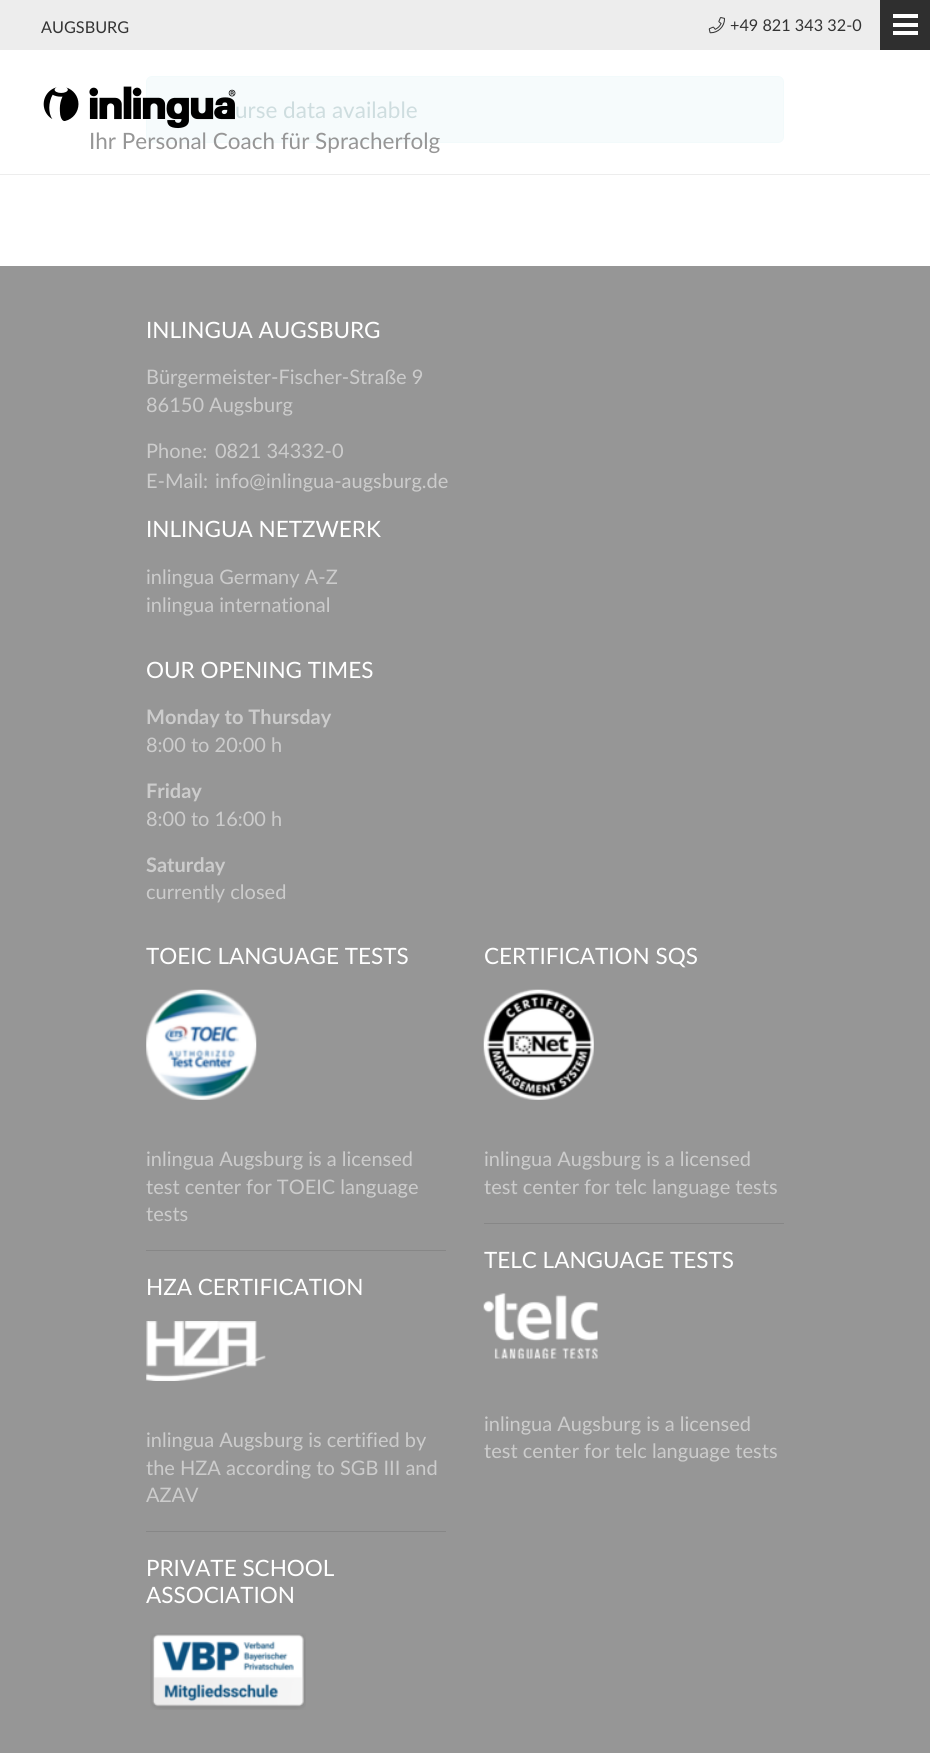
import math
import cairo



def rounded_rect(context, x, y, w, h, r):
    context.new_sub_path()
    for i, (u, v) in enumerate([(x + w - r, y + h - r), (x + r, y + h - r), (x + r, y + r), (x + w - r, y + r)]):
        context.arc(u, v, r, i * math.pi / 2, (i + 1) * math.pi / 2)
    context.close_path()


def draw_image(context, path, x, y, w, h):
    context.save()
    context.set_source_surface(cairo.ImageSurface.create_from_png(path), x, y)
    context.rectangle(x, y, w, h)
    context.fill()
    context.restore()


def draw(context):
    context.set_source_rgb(1, 1, 1)
    context.paint()
    context.set_source_rgb(237 / 255, 237 / 255, 237 / 255)
    context.rectangle(0, 0, 880, 50)
    context.fill()
    draw_image(context, "images/1.png", 708, 17, 17, 17)
    context.set_source_rgb(47 / 255, 47 / 255, 47 / 255)
    context.rectangle(880, 0, 50, 50)
    context.fill()
    context.set_source_rgb(1, 1, 1)
    context.rectangle(893, 23, 25, 4)
    context.fill()
    context.rectangle(893, 14, 25, 4)
    context.fill()
    context.rectangle(893, 31, 25, 4)
    context.fill()
    context.set_source_rgb(237 / 255, 237 / 255, 237 / 255)
    context.rectangle(0, 174, 930, 1)
    context.fill()
    context.set_source_rgb(246 / 255, 251 / 255, 252 / 255)
    rounded_rect(context, 146.5, 76.5, 637, 66, 5.5)
    context.fill_preserve()
    context.set_source_rgb(242 / 255, 250 / 255, 251 / 255)
    context.set_line_width(1)
    context.stroke()
    draw_image(context, "images/2.png", 43, 86, 193, 43)
    context.set_source_rgb(150 / 255, 150 / 255, 150 / 255)
    context.rectangle(0, 266, 930, 1487)
    context.fill()
    draw_image(context, "images/3.png", 146, 989, 111, 111)
    context.set_source_rgb(135 / 255, 135 / 255, 135 / 255)
    context.rectangle(146, 1250, 300, 1)
    context.fill()
    draw_image(context, "images/4.png", 146, 1321, 120, 60)
    context.rectangle(146, 1531, 300, 1)
    context.fill()
    draw_image(context, "images/5.png", 150, 1633, 156, 77)
    draw_image(context, "images/6.png", 483, 989, 111, 111)
    context.rectangle(484, 1223, 300, 1)
    context.fill()
    draw_image(context, "images/7.png", 483, 1293, 115, 66)
    context.select_font_face("Lato")
    context.set_font_size(16.25)
    context.set_source_rgb(51 / 255, 51 / 255, 51 / 255)
    context.move_to(41, 33)
    context.show_text("AUGSBURG")
    context.move_to(730, 31)
    context.show_text("+49 821 343 32-0")
    context.set_font_size(22.5)
    context.set_source_rgb(150 / 255, 150 / 255, 150 / 255)
    context.move_to(89, 149)
    context.show_text("Ihr Personal Coach für Spracherfolg")
    context.set_source_rgb(206 / 255, 221 / 255, 223 / 255)
    context.move_to(235, 118)
    context.show_text("urse data available")
    context.set_source_rgb(1, 1, 1)
    context.move_to(146, 338)
    context.show_text("INLINGUA AUGSBURG")
    context.set_font_size(20)
    context.set_source_rgb(204 / 255, 204 / 255, 204 / 255)
    context.move_to(146, 384)
    context.show_text("Bürgermeister-Fischer-Straße 9")
    context.move_to(146, 412)
    context.show_text("86150 Augsburg")
    context.move_to(146, 458)
    context.show_text("Phone:")
    context.move_to(215, 458)
    context.show_text("0821 34332-0")
    context.move_to(146, 488)
    context.show_text("E-Mail:")
    context.move_to(215, 488)
    context.show_text("info@inlingua-augsburg.de")
    context.set_font_size(22.5)
    context.set_source_rgb(1, 1, 1)
    context.move_to(146, 537)
    context.show_text("INLINGUA NETZWERK")
    context.set_font_size(20)
    context.set_source_rgb(204 / 255, 204 / 255, 204 / 255)
    context.move_to(146, 584)
    context.show_text("inlingua Germany A-Z")
    context.move_to(146, 612)
    context.show_text("inlingua international")
    context.set_font_size(22.5)
    context.set_source_rgb(1, 1, 1)
    context.move_to(146, 678)
    context.show_text("OUR OPENING TIMES")
    context.select_font_face("Lato", cairo.FontSlant.NORMAL, cairo.FontWeight.BOLD)
    context.set_font_size(20)
    context.set_source_rgb(204 / 255, 204 / 255, 204 / 255)
    context.move_to(146, 724)
    context.show_text("Monday to Thursday")
    context.select_font_face("Lato")
    context.move_to(146, 752)
    context.show_text("8:00 to 20:00 h")
    context.select_font_face("Lato", cairo.FontSlant.NORMAL, cairo.FontWeight.BOLD)
    context.move_to(146, 798)
    context.show_text("Friday")
    context.select_font_face("Lato")
    context.move_to(146, 826)
    context.show_text("8:00 to 16:00 h")
    context.select_font_face("Lato", cairo.FontSlant.NORMAL, cairo.FontWeight.BOLD)
    context.move_to(146, 872)
    context.show_text("Saturday")
    context.select_font_face("Lato")
    context.move_to(146, 899)
    context.show_text("currently closed")
    context.set_font_size(22.5)
    context.set_source_rgb(1, 1, 1)
    context.move_to(146, 964)
    context.show_text("TOEIC LANGUAGE TESTS")
    context.set_font_size(20)
    context.set_source_rgb(204 / 255, 204 / 255, 204 / 255)
    context.move_to(146, 1166)
    context.show_text("inlingua Augsburg is a licensed")
    context.move_to(146, 1194)
    context.show_text("test center for TOEIC language")
    context.move_to(146, 1221)
    context.show_text("tests")
    context.set_font_size(22.5)
    context.set_source_rgb(1, 1, 1)
    context.move_to(146, 1295)
    context.show_text("HZA CERTIFICATION")
    context.set_font_size(20)
    context.set_source_rgb(204 / 255, 204 / 255, 204 / 255)
    context.move_to(146, 1447)
    context.show_text("inlingua Augsburg is certified by")
    context.move_to(146, 1475)
    context.show_text("the HZA according to SGB III and")
    context.move_to(146, 1502)
    context.show_text("AZAV")
    context.set_font_size(22.5)
    context.set_source_rgb(1, 1, 1)
    context.move_to(146, 1576)
    context.show_text("PRIVATE SCHOOL")
    context.move_to(146, 1603)
    context.show_text("ASSOCIATION")
    context.move_to(484, 964)
    context.show_text("CERTIFICATION SQS")
    context.set_font_size(20)
    context.set_source_rgb(204 / 255, 204 / 255, 204 / 255)
    context.move_to(484, 1166)
    context.show_text("inlingua Augsburg is a licensed")
    context.move_to(484, 1194)
    context.show_text("test center for telc language tests")
    context.set_font_size(22.5)
    context.set_source_rgb(1, 1, 1)
    context.move_to(484, 1268)
    context.show_text("TELC LANGUAGE TESTS")
    context.set_font_size(20)
    context.set_source_rgb(204 / 255, 204 / 255, 204 / 255)
    context.move_to(484, 1431)
    context.show_text("inlingua Augsburg is a licensed")
    context.move_to(484, 1458)
    context.show_text("test center for telc language tests")


surface = cairo.ImageSurface(cairo.Format.RGB24, 930, 1753)
context = cairo.Context(surface)
options = cairo.FontOptions()
options.set_hint_metrics(cairo.HintMetrics.OFF)
options.set_hint_style(cairo.HintStyle.NONE)
context.set_font_options(options)
context.set_miter_limit(4)
draw(context)
surface.write_to_png("out.png")
